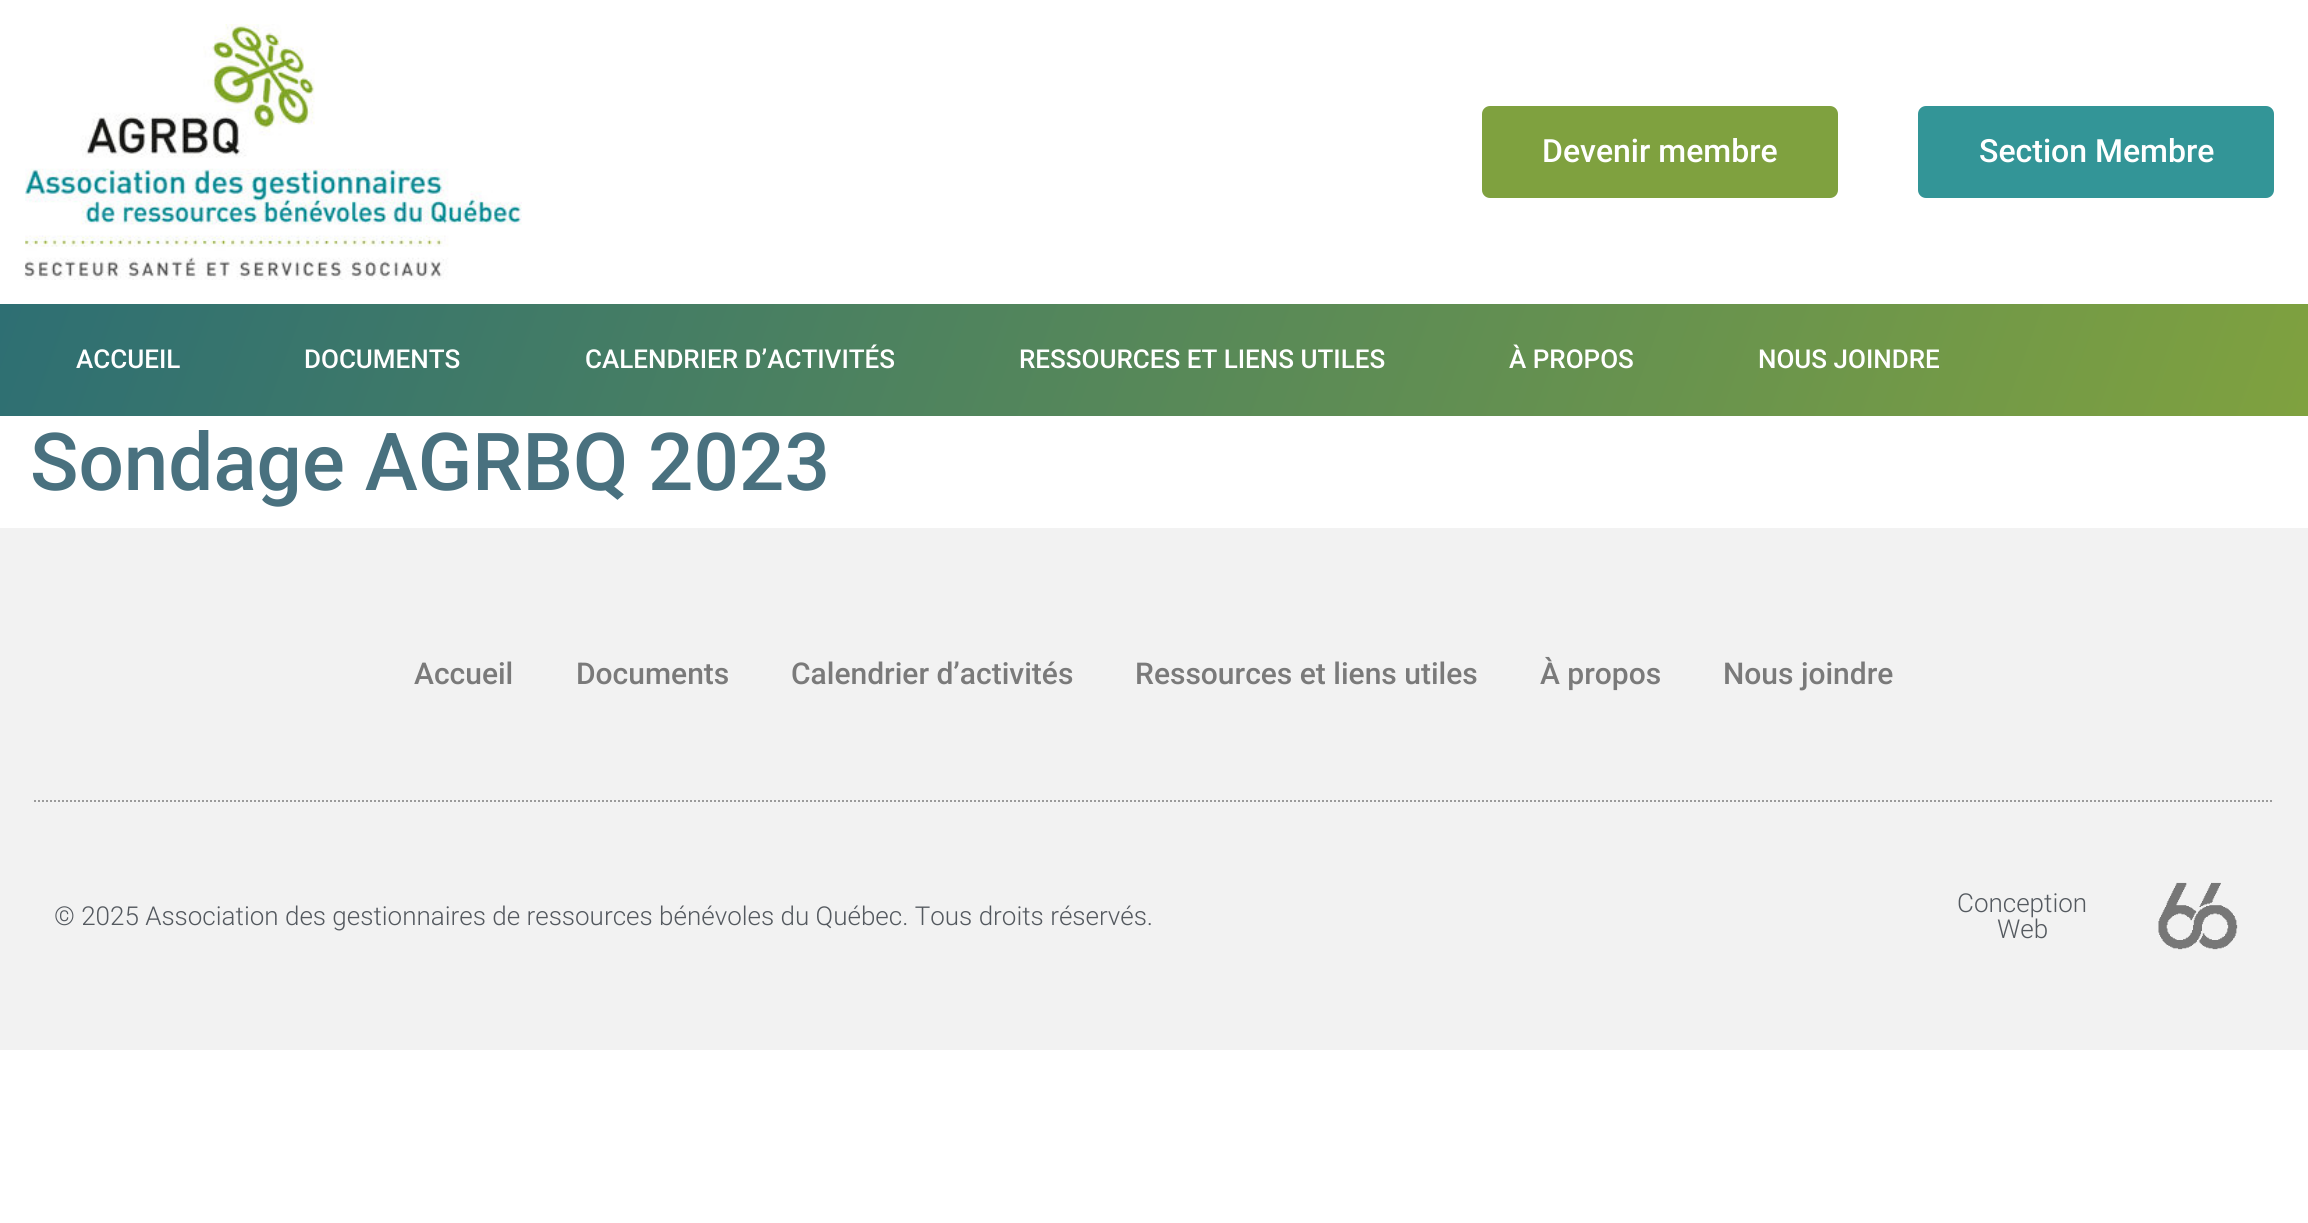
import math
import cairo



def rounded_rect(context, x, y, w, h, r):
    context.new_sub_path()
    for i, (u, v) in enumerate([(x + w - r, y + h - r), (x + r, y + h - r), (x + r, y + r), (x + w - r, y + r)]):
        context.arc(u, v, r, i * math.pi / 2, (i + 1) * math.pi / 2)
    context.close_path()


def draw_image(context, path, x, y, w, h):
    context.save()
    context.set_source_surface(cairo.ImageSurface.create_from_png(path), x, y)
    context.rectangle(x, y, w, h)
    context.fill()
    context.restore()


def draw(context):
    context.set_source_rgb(1, 1, 1)
    context.paint()
    draw_image(context, "images/1.png", 24, 24, 498, 256)
    context.set_source_rgb(127 / 255, 161 / 255, 63 / 255)
    rounded_rect(context, 1482, 106, 356, 92, 8)
    context.fill()
    context.set_source_rgb(51 / 255, 149 / 255, 151 / 255)
    rounded_rect(context, 1918, 106, 356, 92, 8)
    context.fill()
    gradient = cairo.LinearGradient(2191, 737, 117, -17)
    gradient.add_color_stop_rgba(0, 127 / 255, 161 / 255, 63 / 255, 1)
    gradient.add_color_stop_rgba(1, 46 / 255, 111 / 255, 115 / 255, 1)
    context.set_source(gradient)
    context.rectangle(0, 304, 2308, 112)
    context.fill()
    context.set_source_rgb(242 / 255, 242 / 255, 242 / 255)
    context.rectangle(0, 528, 2308, 522)
    context.fill()
    context.new_path()
    context.move_to(34, 801)
    context.line_to(2274, 801)
    context.set_source_rgb(155 / 255, 155 / 255, 155 / 255)
    context.set_dash([2, 2])
    context.stroke()
    draw_image(context, "images/2.png", 2158, 882, 80, 68)
    context.select_font_face("Roboto Medium")
    context.set_font_size(32)
    context.set_source_rgb(1, 1, 1)
    context.move_to(1542, 162)
    context.show_text("Devenir membre")
    context.move_to(1979, 162)
    context.show_text("Section Membre")
    context.set_font_size(26)
    context.move_to(76, 368)
    context.show_text("ACCUEIL")
    context.move_to(304, 368)
    context.show_text("DOCUMENTS")
    context.move_to(585, 368)
    context.show_text("CALENDRIER D’ACTIVITÉS")
    context.move_to(1019, 368)
    context.show_text("RESSOURCES ET LIENS UTILES")
    context.move_to(1509, 368)
    context.show_text("À PROPOS")
    context.move_to(1758, 368)
    context.show_text("NOUS JOINDRE")
    context.set_font_size(80)
    context.set_source_rgb(73 / 255, 113 / 255, 127 / 255)
    context.move_to(30, 490)
    context.show_text("Sondage AGRBQ 2023")
    context.set_font_size(30)
    context.set_source_rgb(122 / 255, 122 / 255, 122 / 255)
    context.move_to(414, 684)
    context.show_text("Accueil")
    context.move_to(576, 684)
    context.show_text("Documents")
    context.move_to(791, 684)
    context.show_text("Calendrier d’activités")
    context.move_to(1135, 684)
    context.show_text("Ressources et liens utiles")
    context.move_to(1540, 684)
    context.show_text("À propos")
    context.move_to(1723, 684)
    context.show_text("Nous joindre")
    context.select_font_face("Roboto Light")
    context.set_font_size(26)
    context.set_source_rgb(84 / 255, 89 / 255, 95 / 255)
    context.move_to(54, 925)
    context.show_text("© 2025 Association des gestionnaires de ressources bénévoles du Québec. Tous droits réservés.")
    context.move_to(1957, 912)
    context.show_text("Conception")
    context.move_to(1997, 938)
    context.show_text("Web")


surface = cairo.ImageSurface(cairo.Format.RGB24, 2308, 1223)
context = cairo.Context(surface)
options = cairo.FontOptions()
options.set_hint_metrics(cairo.HintMetrics.OFF)
options.set_hint_style(cairo.HintStyle.NONE)
context.set_font_options(options)
context.set_miter_limit(4)
draw(context)
surface.write_to_png("out.png")
